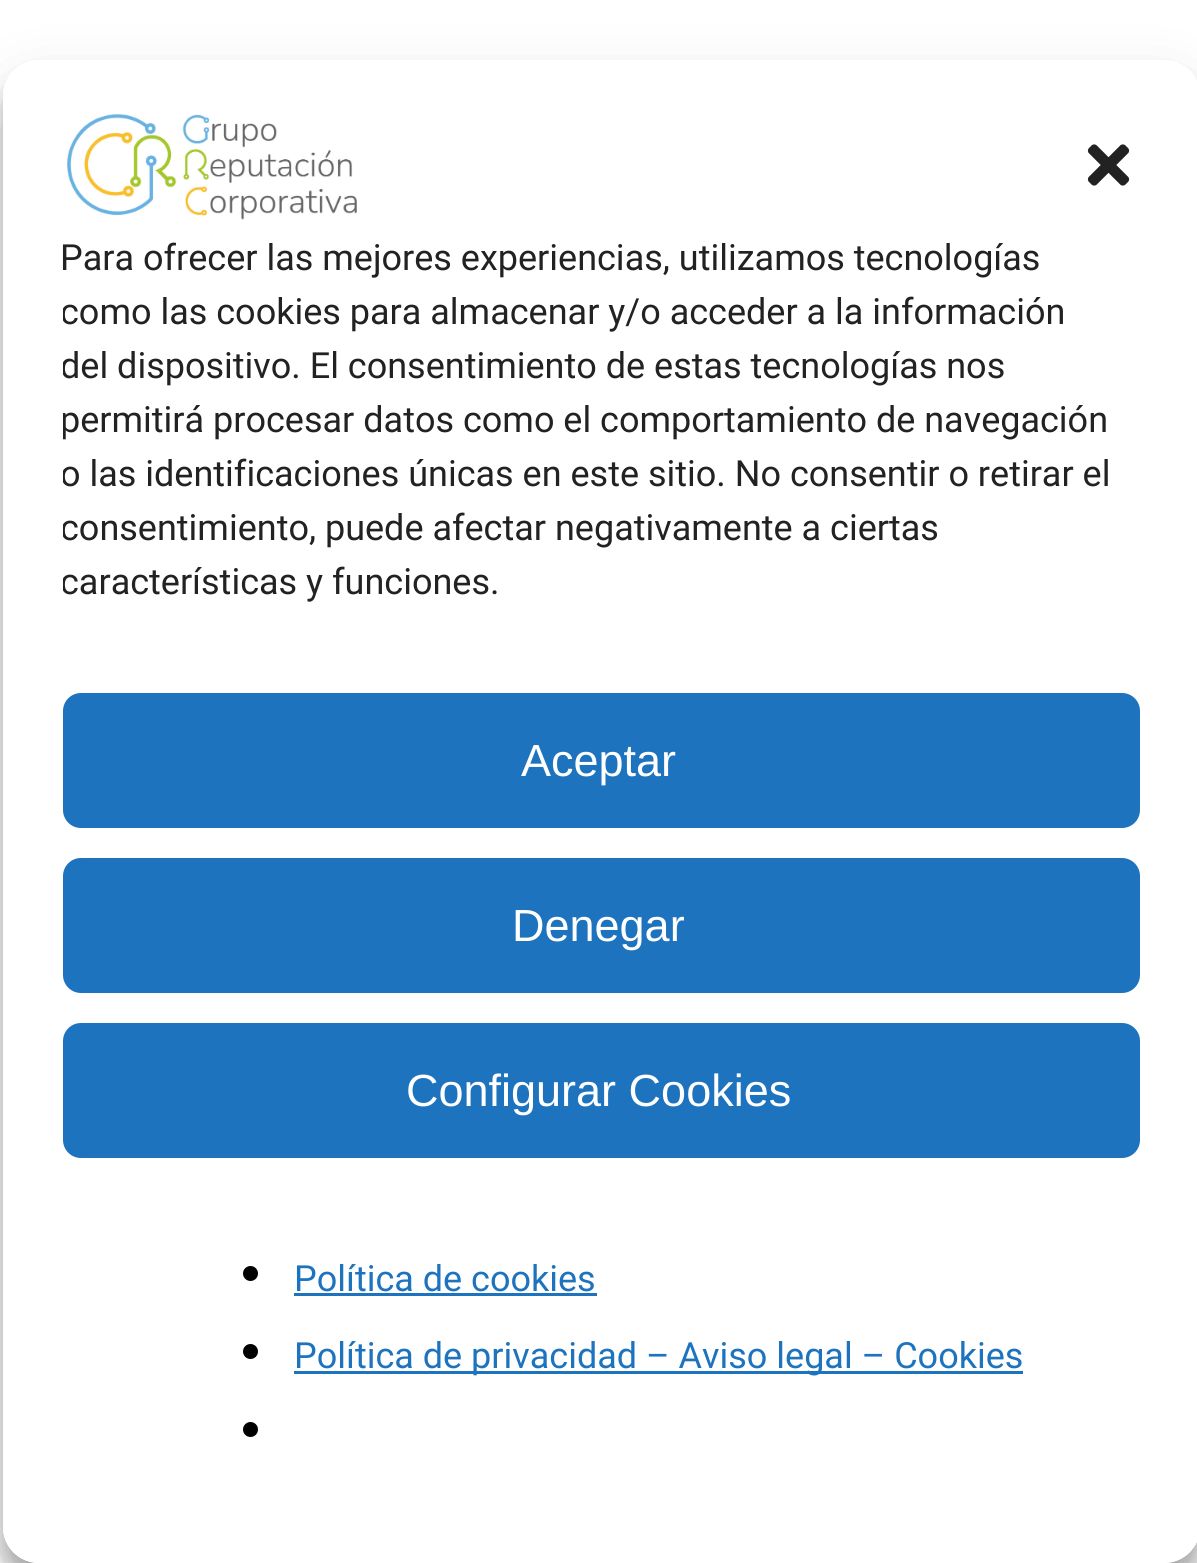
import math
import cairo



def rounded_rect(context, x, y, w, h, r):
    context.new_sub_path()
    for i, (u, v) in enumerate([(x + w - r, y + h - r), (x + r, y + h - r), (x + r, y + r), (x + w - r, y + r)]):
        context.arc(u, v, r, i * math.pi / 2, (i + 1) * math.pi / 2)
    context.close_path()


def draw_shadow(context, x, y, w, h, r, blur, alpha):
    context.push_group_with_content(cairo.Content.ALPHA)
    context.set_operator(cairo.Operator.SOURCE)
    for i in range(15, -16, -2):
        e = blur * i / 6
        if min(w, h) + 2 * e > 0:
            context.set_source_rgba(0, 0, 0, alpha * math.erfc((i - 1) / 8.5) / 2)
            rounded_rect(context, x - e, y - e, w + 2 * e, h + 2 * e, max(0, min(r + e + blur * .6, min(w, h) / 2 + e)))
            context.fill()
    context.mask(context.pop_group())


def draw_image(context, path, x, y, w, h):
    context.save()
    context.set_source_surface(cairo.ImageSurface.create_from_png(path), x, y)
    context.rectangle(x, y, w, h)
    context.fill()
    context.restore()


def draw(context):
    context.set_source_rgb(1, 1, 1)
    context.paint()
    context.save()
    context.set_fill_rule(cairo.FillRule.EVEN_ODD)
    context.new_path()
    context.move_to(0, 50)
    context.line_to(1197, 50)
    context.line_to(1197, 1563)
    context.line_to(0, 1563)
    context.close_path()
    context.move_to(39, 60)
    context.line_to(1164, 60)
    context.curve_to(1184, 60, 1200, 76, 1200, 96)
    context.line_to(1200, 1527)
    context.curve_to(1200, 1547, 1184, 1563, 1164, 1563)
    context.line_to(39, 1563)
    context.curve_to(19, 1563, 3, 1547, 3, 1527)
    context.line_to(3, 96)
    context.curve_to(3, 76, 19, 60, 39, 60)
    context.close_path()
    context.clip()
    context.set_source_rgb(0, 0, 0)
    draw_shadow(context, 3, 78, 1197, 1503, 36, 9, 0.23)
    context.restore()
    context.save()
    context.set_fill_rule(cairo.FillRule.EVEN_ODD)
    context.new_path()
    context.move_to(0, 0)
    context.line_to(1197, 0)
    context.line_to(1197, 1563)
    context.line_to(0, 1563)
    context.close_path()
    context.move_to(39, 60)
    context.line_to(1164, 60)
    context.curve_to(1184, 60, 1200, 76, 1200, 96)
    context.line_to(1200, 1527)
    context.curve_to(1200, 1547, 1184, 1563, 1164, 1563)
    context.line_to(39, 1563)
    context.curve_to(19, 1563, 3, 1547, 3, 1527)
    context.line_to(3, 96)
    context.curve_to(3, 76, 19, 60, 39, 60)
    context.close_path()
    context.clip()
    context.set_source_rgb(0, 0, 0)
    draw_shadow(context, 3, 90, 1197, 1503, 36, 30, 0.19)
    context.restore()
    context.set_source_rgb(1, 1, 1)
    rounded_rect(context, 3, 60, 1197, 1503, 36)
    context.fill()
    draw_image(context, "images/1.png", 66, 113, 291, 107)
    draw_image(context, "images/2.png", 1087, 144, 43, 42)
    context.set_source_rgb(30 / 255, 115 / 255, 190 / 255)
    rounded_rect(context, 64.5, 694.5, 1074, 132, 16.5)
    context.fill_preserve()
    context.set_line_width(3)
    context.stroke()
    rounded_rect(context, 64.5, 859.5, 1074, 132, 16.5)
    context.fill_preserve()
    context.stroke()
    rounded_rect(context, 64.5, 1024.5, 1074, 132, 16.5)
    context.fill_preserve()
    context.stroke()
    context.set_source_rgb(0, 0, 0)
    context.arc(250.5, 1273.5, 7.5, 0, 2 * math.pi)
    context.fill()
    context.set_source_rgb(30 / 255, 115 / 255, 190 / 255)
    context.rectangle(294, 1293, 303, 3)
    context.fill()
    context.set_source_rgb(0, 0, 0)
    context.arc(250.5, 1351.5, 7.5, 0, 2 * math.pi)
    context.fill()
    context.set_source_rgb(30 / 255, 115 / 255, 190 / 255)
    context.rectangle(294, 1371, 729, 3)
    context.fill()
    context.set_source_rgb(0, 0, 0)
    context.arc(250.5, 1429.5, 7.5, 0, 2 * math.pi)
    context.fill()
    context.select_font_face("Roboto")
    context.set_font_size(36)
    context.set_source_rgb(34 / 255, 34 / 255, 34 / 255)
    context.move_to(60, 270)
    context.show_text("Para ofrecer las mejores experiencias, utilizamos tecnologías")
    context.save()
    context.rectangle(63, 231, 1077, 393)
    context.clip()
    context.move_to(60, 324)
    context.show_text("como las cookies para almacenar y/o acceder a la información")
    context.move_to(60, 378)
    context.show_text("del dispositivo. El consentimiento de estas tecnologías nos")
    context.move_to(60, 432)
    context.show_text("permitirá procesar datos como el comportamiento de navegación")
    context.move_to(60, 486)
    context.show_text("o las identificaciones únicas en este sitio. No consentir o retirar el")
    context.move_to(60, 540)
    context.show_text("consentimiento, puede afectar negativamente a ciertas")
    context.move_to(60, 594)
    context.show_text("características y funciones.")
    context.restore()
    context.select_font_face("Liberation Sans")
    context.set_font_size(45)
    context.set_source_rgb(1, 1, 1)
    context.move_to(521, 776)
    context.show_text("Aceptar")
    context.move_to(512, 941)
    context.show_text("Denegar")
    context.move_to(406, 1106)
    context.show_text("Configurar Cookies")
    context.select_font_face("Roboto")
    context.set_font_size(36)
    context.set_source_rgb(30 / 255, 115 / 255, 190 / 255)
    context.move_to(294, 1291)
    context.show_text("Política de cookies")
    context.move_to(294, 1368)
    context.show_text("Política de privacidad – Aviso legal – Cookies")


surface = cairo.ImageSurface(cairo.Format.RGB24, 1197, 1563)
context = cairo.Context(surface)
options = cairo.FontOptions()
options.set_hint_metrics(cairo.HintMetrics.OFF)
options.set_hint_style(cairo.HintStyle.NONE)
context.set_font_options(options)
context.set_miter_limit(4)
draw(context)
surface.write_to_png("out.png")
